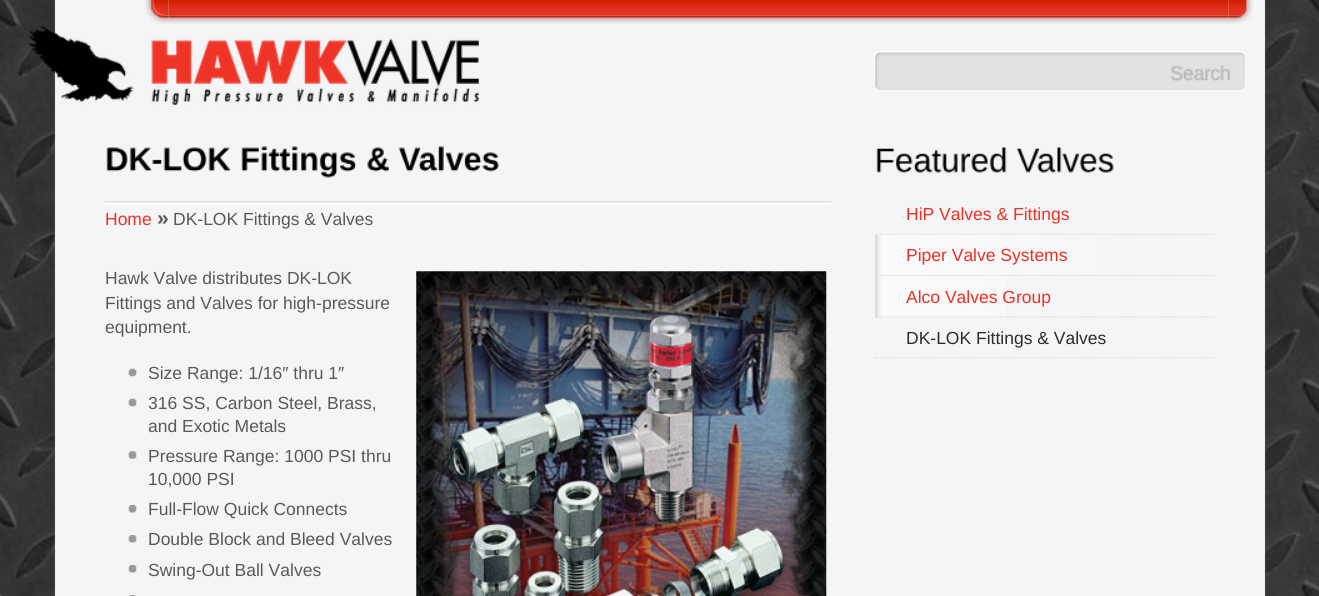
import math
import cairo



def draw_image(context, path, x, y, w, h):
    context.save()
    context.set_source_surface(cairo.ImageSurface.create_from_png(path), x, y)
    context.rectangle(x, y, w, h)
    context.fill()
    context.restore()


def draw(context):
    context.set_source_rgb(1, 1, 1)
    context.paint()
    draw_image(context, "images/1.png", 0, 0, 1319, 596)
    draw_image(context, "images/2.png", 54, 0, 1212, 125)
    draw_image(context, "images/3.png", 145, 0, 24, 24)
    draw_image(context, "images/4.png", 168, 0, 1061, 24)
    draw_image(context, "images/5.png", 1228, 0, 25, 24)
    draw_image(context, "images/6.png", 28, 26, 451, 79)
    draw_image(context, "images/7.png", 874, 51, 372, 40)
    draw_image(context, "images/8.png", 54, 125, 1212, 471)
    draw_image(context, "images/9.png", 106, 147, 125, 25)
    draw_image(context, "images/10.png", 241, 146, 116, 33)
    draw_image(context, "images/11.png", 367, 147, 23, 25)
    draw_image(context, "images/12.png", 398, 146, 102, 26)
    draw_image(context, "images/13.png", 105, 201, 727, 4)
    draw_image(context, "images/14.png", 416, 271, 411, 325)
    draw_image(context, "images/15.png", 128, 368, 9, 9)
    draw_image(context, "images/15.png", 128, 398, 9, 9)
    draw_image(context, "images/16.png", 128, 451, 9, 8)
    draw_image(context, "images/17.png", 128, 505, 9, 8)
    draw_image(context, "images/17.png", 128, 535, 9, 8)
    draw_image(context, "images/17.png", 128, 565, 9, 8)
    draw_image(context, "images/18.png", 129, 595, 7, 1)
    draw_image(context, "images/19.png", 876, 147, 131, 26)
    draw_image(context, "images/20.png", 1016, 147, 98, 26)
    context.new_path()
    context.move_to(875, 234.5)
    context.line_to(1215, 234.5)
    context.set_source_rgb(219 / 255, 219 / 255, 220 / 255)
    context.set_line_width(1.2)
    context.set_dash([1.25, 1.25])
    context.stroke()
    draw_image(context, "images/21.png", 875, 235, 231, 42)
    context.new_path()
    context.move_to(875, 275.5)
    context.line_to(1215, 275.5)
    context.stroke()
    draw_image(context, "images/22.png", 875, 276, 131, 42)
    context.new_path()
    context.move_to(875, 317)
    context.line_to(1215, 317)
    context.stroke()
    context.new_path()
    context.move_to(875, 358)
    context.line_to(1215, 358)
    context.stroke()
    context.select_font_face("Liberation Sans")
    context.set_font_size(17.5)
    context.set_source_rgb(238 / 255, 49 / 255, 36 / 255)
    context.move_to(105, 225)
    context.show_text("Home")
    context.select_font_face("Liberation Sans", cairo.FontSlant.NORMAL, cairo.FontWeight.BOLD)
    context.set_font_size(21)
    context.set_source_rgb(89 / 255, 89 / 255, 89 / 255)
    context.move_to(157, 225)
    context.show_text("»")
    context.select_font_face("Liberation Sans")
    context.set_font_size(17.5)
    context.move_to(173, 225)
    context.show_text("DK-LOK Fittings & Valves")
    context.move_to(105, 284)
    context.show_text("Hawk Valve distributes DK-LOK")
    context.move_to(105, 309)
    context.show_text("Fittings and Valves for high-pressure")
    context.move_to(105, 333)
    context.show_text("equipment.")
    context.move_to(148, 379)
    context.show_text("Size Range: 1/16″ thru 1″")
    context.move_to(148, 409)
    context.show_text("316 SS, Carbon Steel, Brass,")
    context.move_to(148, 432)
    context.show_text("and Exotic Metals")
    context.move_to(148, 462)
    context.show_text("Pressure Range: 1000 PSI thru")
    context.move_to(148, 485)
    context.show_text("10,000 PSI")
    context.move_to(148, 515)
    context.show_text("Full-Flow Quick Connects")
    context.move_to(148, 545)
    context.show_text("Double Block and Bleed Valves")
    context.move_to(148, 576)
    context.show_text("Swing-Out Ball Valves")
    context.set_source_rgb(238 / 255, 49 / 255, 36 / 255)
    context.move_to(906, 220)
    context.show_text("HiP Valves & Fittings")
    context.move_to(906, 261)
    context.show_text("Piper Valve Systems")
    context.move_to(906, 303)
    context.show_text("Alco Valves Group")
    context.set_source_rgb(44 / 255, 44 / 255, 44 / 255)
    context.move_to(906, 344)
    context.show_text("DK-LOK Fittings & Valves")


surface = cairo.ImageSurface(cairo.Format.RGB24, 1319, 596)
context = cairo.Context(surface)
options = cairo.FontOptions()
options.set_hint_metrics(cairo.HintMetrics.OFF)
options.set_hint_style(cairo.HintStyle.NONE)
context.set_font_options(options)
context.set_miter_limit(4)
draw(context)
surface.write_to_png("out.png")
